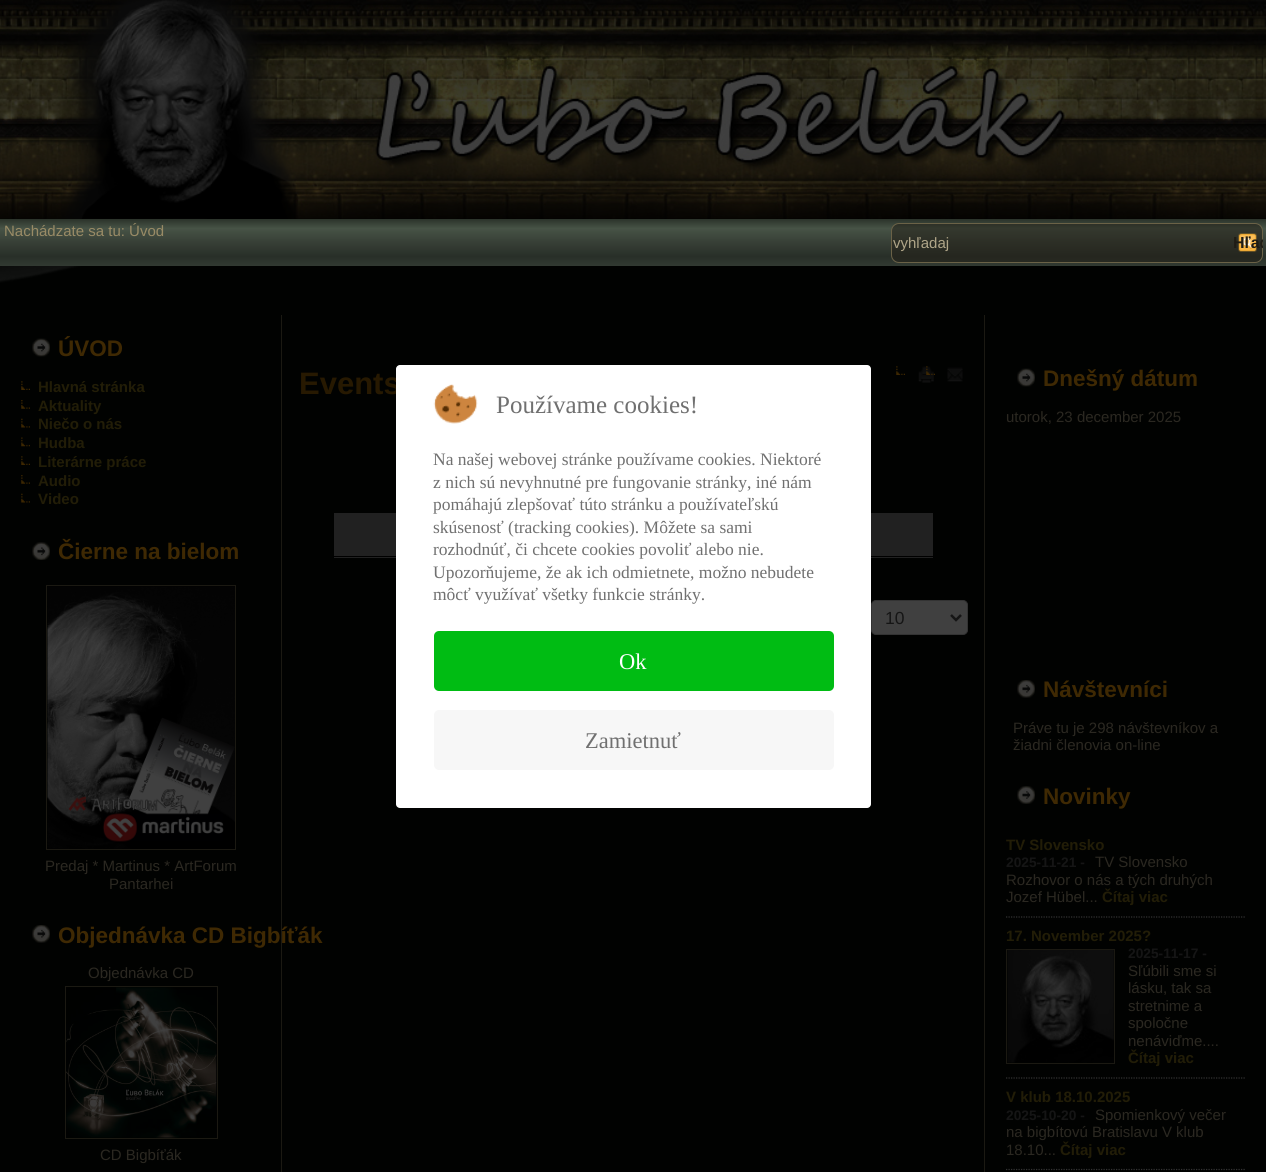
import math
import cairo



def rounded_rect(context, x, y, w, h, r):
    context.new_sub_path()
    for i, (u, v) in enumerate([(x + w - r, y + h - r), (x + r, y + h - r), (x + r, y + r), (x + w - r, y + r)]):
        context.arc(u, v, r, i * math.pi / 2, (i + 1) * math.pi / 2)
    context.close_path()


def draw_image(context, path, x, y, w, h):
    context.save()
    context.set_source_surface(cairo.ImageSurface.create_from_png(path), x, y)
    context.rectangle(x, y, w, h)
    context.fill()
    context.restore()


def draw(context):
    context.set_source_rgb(1 / 255, 2 / 255, 1 / 255)
    context.paint()
    draw_image(context, "images/1.png", 0, 218, 207, 65)
    draw_image(context, "images/2.png", 0, 0, 1266, 219)
    gradient = cairo.LinearGradient(633, 219, 633, 266)
    gradient.add_color_stop_rgba(0, 43 / 255, 50 / 255, 42 / 255, 1)
    gradient.add_color_stop_rgba(0.2, 71 / 255, 83 / 255, 70 / 255, 1)
    gradient.add_color_stop_rgba(0.5, 55 / 255, 63 / 255, 54 / 255, 1)
    gradient.add_color_stop_rgba(0.8, 40 / 255, 47 / 255, 40 / 255, 1)
    gradient.add_color_stop_rgba(1, 50 / 255, 58 / 255, 49 / 255, 1)
    context.set_source(gradient)
    context.rectangle(0, 219, 1266, 47)
    context.fill()
    context.set_source_rgba(34 / 255, 31 / 255, 22 / 255, 0.5)
    rounded_rect(context, 891.5, 223.5, 371, 39, 7.5)
    context.fill_preserve()
    context.set_source_rgb(107 / 255, 98 / 255, 71 / 255)
    context.set_line_width(1)
    context.stroke()
    draw_image(context, "images/3.png", 1238, 233, 19, 19)
    context.set_source_rgb(27 / 255, 25 / 255, 18 / 255)
    context.rectangle(281, 315, 1, 857)
    context.fill()
    draw_image(context, "images/4.png", 32, 338, 18, 19)
    draw_image(context, "images/5.png", 21, 381, 9, 9)
    draw_image(context, "images/6.png", 21, 400, 9, 9)
    draw_image(context, "images/7.png", 21, 418, 9, 10)
    draw_image(context, "images/8.png", 21, 437, 9, 10)
    draw_image(context, "images/5.png", 21, 456, 9, 9)
    draw_image(context, "images/6.png", 21, 475, 9, 9)
    draw_image(context, "images/7.png", 21, 493, 9, 10)
    draw_image(context, "images/9.png", 32, 542, 18, 18)
    context.rectangle(46.5, 585.5, 189, 264)
    context.stroke()
    draw_image(context, "images/10.png", 47, 586, 188, 263)
    draw_image(context, "images/11.png", 32, 925, 18, 18)
    context.rectangle(65.5, 986.5, 152, 152)
    context.stroke()
    draw_image(context, "images/12.png", 66, 987, 151, 151)
    draw_image(context, "images/13.png", 896, 366, 9, 9)
    draw_image(context, "images/14.png", 918, 366, 16, 17)
    draw_image(context, "images/15.png", 926, 366, 9, 9)
    draw_image(context, "images/16.png", 947, 367, 16, 15)
    context.set_source_rgb(33 / 255, 33 / 255, 33 / 255)
    context.rectangle(334, 513, 599, 45)
    context.fill()
    context.set_source_rgb(0, 0, 0)
    context.rectangle(333, 556, 601, 1)
    context.fill()
    context.set_source_rgb(64 / 255, 64 / 255, 64 / 255)
    rounded_rect(context, 871.5, 600.5, 96, 34, 4.5)
    context.fill_preserve()
    context.set_source_rgb(51 / 255, 51 / 255, 51 / 255)
    context.stroke()
    context.new_path()
    context.move_to(951, 615)
    context.line_to(956, 620)
    context.line_to(961, 615)
    context.set_source_rgb(21 / 255, 21 / 255, 21 / 255)
    context.set_line_width(2.5)
    context.stroke()
    context.set_source_rgb(27 / 255, 25 / 255, 18 / 255)
    context.rectangle(984, 315, 1, 857)
    context.fill()
    draw_image(context, "images/4.png", 1017, 368, 18, 19)
    draw_image(context, "images/11.png", 1017, 680, 18, 18)
    draw_image(context, "images/17.png", 1017, 786, 18, 18)
    context.new_path()
    context.move_to(1006, 917)
    context.line_to(1245, 917)
    context.set_source_rgb(51 / 255, 51 / 255, 51 / 255)
    context.set_line_width(1.2)
    context.set_dash([1.25, 1.25])
    context.stroke()
    context.new_path()
    context.move_to(1006, 1078)
    context.line_to(1245, 1078)
    context.stroke()
    context.rectangle(1006.5, 949.5, 108, 114)
    context.set_source_rgb(27 / 255, 25 / 255, 18 / 255)
    context.set_line_width(1)
    context.set_dash([])
    context.stroke()
    draw_image(context, "images/18.png", 1007, 950, 107, 113)
    context.new_path()
    context.move_to(1006, 1169.5)
    context.line_to(1245, 1169.5)
    context.set_source_rgb(51 / 255, 51 / 255, 51 / 255)
    context.set_line_width(1.2)
    context.set_dash([1.25, 1.25])
    context.stroke()
    context.select_font_face("Liberation Sans")
    context.set_font_size(15)
    context.set_source_rgb(153 / 255, 139 / 255, 102 / 255)
    context.move_to(4, 236)
    context.show_text("Nachádzate sa tu: Úvod")
    context.save()
    rounded_rect(context, 893, 224, 368, 37, 6)
    context.clip()
    context.set_source_rgb(175 / 255, 165 / 255, 136 / 255)
    context.move_to(893, 248)
    context.show_text("vyhľadaj")
    context.restore()
    context.save()
    context.rectangle(1233, 223, 30, 40)
    context.clip()
    context.select_font_face("Liberation Sans", cairo.FontSlant.NORMAL, cairo.FontWeight.BOLD)
    context.set_font_size(16)
    context.set_source_rgb(31 / 255, 28 / 255, 20 / 255)
    context.move_to(1233, 248)
    context.show_text("Hľad")
    context.restore()
    context.select_font_face("Liberation Sans", cairo.FontSlant.NORMAL, cairo.FontWeight.BOLD)
    context.set_font_size(22.5)
    context.set_source_rgb(63 / 255, 41 / 255, 3 / 255)
    context.move_to(58, 356)
    context.show_text("ÚVOD")
    context.set_font_size(15)
    context.set_source_rgb(34 / 255, 29 / 255, 7 / 255)
    context.move_to(38, 392)
    context.show_text("Hlavná stránka")
    context.move_to(38, 411)
    context.show_text("Aktuality")
    context.move_to(38, 429)
    context.show_text("Niečo o nás")
    context.move_to(38, 448)
    context.show_text("Hudba")
    context.move_to(38, 467)
    context.show_text("Literárne práce")
    context.move_to(38, 486)
    context.show_text("Audio")
    context.move_to(38, 504)
    context.show_text("Video")
    context.set_font_size(22.5)
    context.set_source_rgb(63 / 255, 41 / 255, 3 / 255)
    context.move_to(58, 559)
    context.show_text("Čierne na bielom")
    context.select_font_face("Liberation Sans")
    context.set_font_size(15)
    context.set_source_rgb(43 / 255, 40 / 255, 33 / 255)
    context.move_to(45, 871)
    context.show_text("Predaj * Martinus * ArtForum")
    context.move_to(109, 889)
    context.show_text("Pantarhei")
    context.select_font_face("Liberation Sans", cairo.FontSlant.NORMAL, cairo.FontWeight.BOLD)
    context.set_font_size(22.5)
    context.set_source_rgb(63 / 255, 41 / 255, 3 / 255)
    context.move_to(58, 943)
    context.show_text("Objednávka CD Bigbíťák")
    context.select_font_face("Liberation Sans")
    context.set_font_size(15)
    context.set_source_rgb(43 / 255, 40 / 255, 33 / 255)
    context.move_to(88, 978)
    context.show_text("Objednávka CD")
    context.move_to(100, 1160)
    context.show_text("CD Bigbíťák")
    context.select_font_face("Liberation Sans", cairo.FontSlant.NORMAL, cairo.FontWeight.BOLD)
    context.set_font_size(31)
    context.set_source_rgb(39 / 255, 25 / 255, 1 / 255)
    context.move_to(299, 394)
    context.show_text("Events")
    context.select_font_face("Liberation Sans")
    context.set_font_size(17.5)
    context.set_source_rgb(21 / 255, 21 / 255, 21 / 255)
    context.move_to(885, 624)
    context.show_text("10")
    context.select_font_face("Liberation Sans", cairo.FontSlant.NORMAL, cairo.FontWeight.BOLD)
    context.set_font_size(22.5)
    context.set_source_rgb(63 / 255, 41 / 255, 3 / 255)
    context.move_to(1043, 386)
    context.show_text("Dnešný dátum")
    context.select_font_face("Liberation Sans")
    context.set_font_size(15)
    context.set_source_rgb(43 / 255, 40 / 255, 33 / 255)
    context.move_to(1006, 422)
    context.show_text("utorok, 23 december 2025")
    context.select_font_face("Liberation Sans", cairo.FontSlant.NORMAL, cairo.FontWeight.BOLD)
    context.set_font_size(22.5)
    context.set_source_rgb(63 / 255, 41 / 255, 3 / 255)
    context.move_to(1043, 697)
    context.show_text("Návštevníci")
    context.select_font_face("Liberation Sans")
    context.set_font_size(15)
    context.set_source_rgb(43 / 255, 40 / 255, 33 / 255)
    context.move_to(1013, 733)
    context.show_text("Práve tu je 298 návštevníkov a")
    context.move_to(1013, 750)
    context.show_text("žiadni členovia on-line")
    context.select_font_face("Liberation Sans", cairo.FontSlant.NORMAL, cairo.FontWeight.BOLD)
    context.set_font_size(22.5)
    context.set_source_rgb(63 / 255, 41 / 255, 3 / 255)
    context.move_to(1043, 804)
    context.show_text("Novinky")
    context.set_font_size(15)
    context.set_source_rgb(34 / 255, 29 / 255, 7 / 255)
    context.move_to(1006, 850)
    context.show_text("TV Slovensko")
    context.set_font_size(13.75)
    context.set_source_rgb(21 / 255, 21 / 255, 21 / 255)
    context.move_to(1006, 867)
    context.show_text("2025-11-21 -")
    context.select_font_face("Liberation Sans")
    context.set_font_size(15)
    context.set_source_rgb(43 / 255, 40 / 255, 33 / 255)
    context.move_to(1095, 867)
    context.show_text("TV Slovensko")
    context.move_to(1006, 885)
    context.show_text("Rozhovor o nás a tých druhých")
    context.move_to(1006, 902)
    context.show_text("Jozef Hübel...")
    context.select_font_face("Liberation Sans", cairo.FontSlant.NORMAL, cairo.FontWeight.BOLD)
    context.set_source_rgb(34 / 255, 29 / 255, 7 / 255)
    context.move_to(1102, 902)
    context.show_text("Čítaj viac")
    context.move_to(1006, 941)
    context.show_text("17. November 2025?")
    context.set_font_size(13.75)
    context.set_source_rgb(21 / 255, 21 / 255, 21 / 255)
    context.move_to(1128, 958)
    context.show_text("2025-11-17 -")
    context.select_font_face("Liberation Sans")
    context.set_font_size(15)
    context.set_source_rgb(43 / 255, 40 / 255, 33 / 255)
    context.move_to(1128, 976)
    context.show_text("Sľúbili sme si")
    context.move_to(1128, 993)
    context.show_text("lásku, tak sa")
    context.move_to(1128, 1011)
    context.show_text("stretnime a")
    context.move_to(1128, 1028)
    context.show_text("spoločne")
    context.move_to(1128, 1046)
    context.show_text("nenáviďme....")
    context.select_font_face("Liberation Sans", cairo.FontSlant.NORMAL, cairo.FontWeight.BOLD)
    context.set_source_rgb(34 / 255, 29 / 255, 7 / 255)
    context.move_to(1128, 1063)
    context.show_text("Čítaj viac")
    context.move_to(1006, 1102)
    context.show_text("V klub 18.10.2025")
    context.set_font_size(13.75)
    context.set_source_rgb(21 / 255, 21 / 255, 21 / 255)
    context.move_to(1006, 1120)
    context.show_text("2025-10-20 -")
    context.select_font_face("Liberation Sans")
    context.set_font_size(15)
    context.set_source_rgb(43 / 255, 40 / 255, 33 / 255)
    context.move_to(1095, 1120)
    context.show_text("Spomienkový večer")
    context.move_to(1006, 1137)
    context.show_text("na bigbítovú Bratislavu V klub")
    context.move_to(1006, 1155)
    context.show_text("18.10...")
    context.select_font_face("Liberation Sans", cairo.FontSlant.NORMAL, cairo.FontWeight.BOLD)
    context.set_source_rgb(34 / 255, 29 / 255, 7 / 255)
    context.move_to(1060, 1155)
    context.show_text("Čítaj viac")
    context.set_source_rgb(1, 1, 1)
    rounded_rect(context, 396, 365, 475, 443, 4)
    context.fill()
    draw_image(context, "images/19.png", 433, 384, 45, 40)
    context.select_font_face("Liberation Serif")
    context.set_font_size(25)
    context.set_source_rgb(112 / 255, 112 / 255, 112 / 255)
    context.move_to(496, 413)
    context.show_text("Používame cookies!")
    context.set_font_size(17.5)
    context.move_to(433, 465)
    context.show_text("Na našej webovej stránke používame cookies. Niektoré")
    context.move_to(433, 488)
    context.show_text("z nich sú nevyhnutné pre fungovanie stránky, iné nám")
    context.move_to(433, 510)
    context.show_text("pomáhajú zlepšovať túto stránku a používateľskú")
    context.move_to(433, 533)
    context.show_text("skúsenosť (tracking cookies). Môžete sa sami")
    context.move_to(433, 555)
    context.show_text("rozhodnúť, či chcete cookies povoliť alebo nie.")
    context.move_to(433, 578)
    context.show_text("Upozorňujeme, že ak ich odmietnete, možno nebudete")
    context.move_to(433, 600)
    context.show_text("môcť využívať všetky funkcie stránky.")
    context.set_source_rgb(0, 188 / 255, 19 / 255)
    rounded_rect(context, 434, 631, 400, 60, 5)
    context.fill()
    context.set_font_size(22.5)
    context.set_source_rgb(1, 1, 1)
    context.move_to(619, 669)
    context.show_text("Ok")
    context.set_source_rgb(247 / 255, 247 / 255, 247 / 255)
    rounded_rect(context, 434, 710, 400, 60, 5)
    context.fill()
    context.set_source_rgb(112 / 255, 112 / 255, 112 / 255)
    context.move_to(585, 748)
    context.show_text("Zamietnuť")


surface = cairo.ImageSurface(cairo.Format.RGB24, 1266, 1172)
context = cairo.Context(surface)
options = cairo.FontOptions()
options.set_hint_metrics(cairo.HintMetrics.OFF)
options.set_hint_style(cairo.HintStyle.NONE)
context.set_font_options(options)
context.set_miter_limit(4)
draw(context)
surface.write_to_png("out.png")
